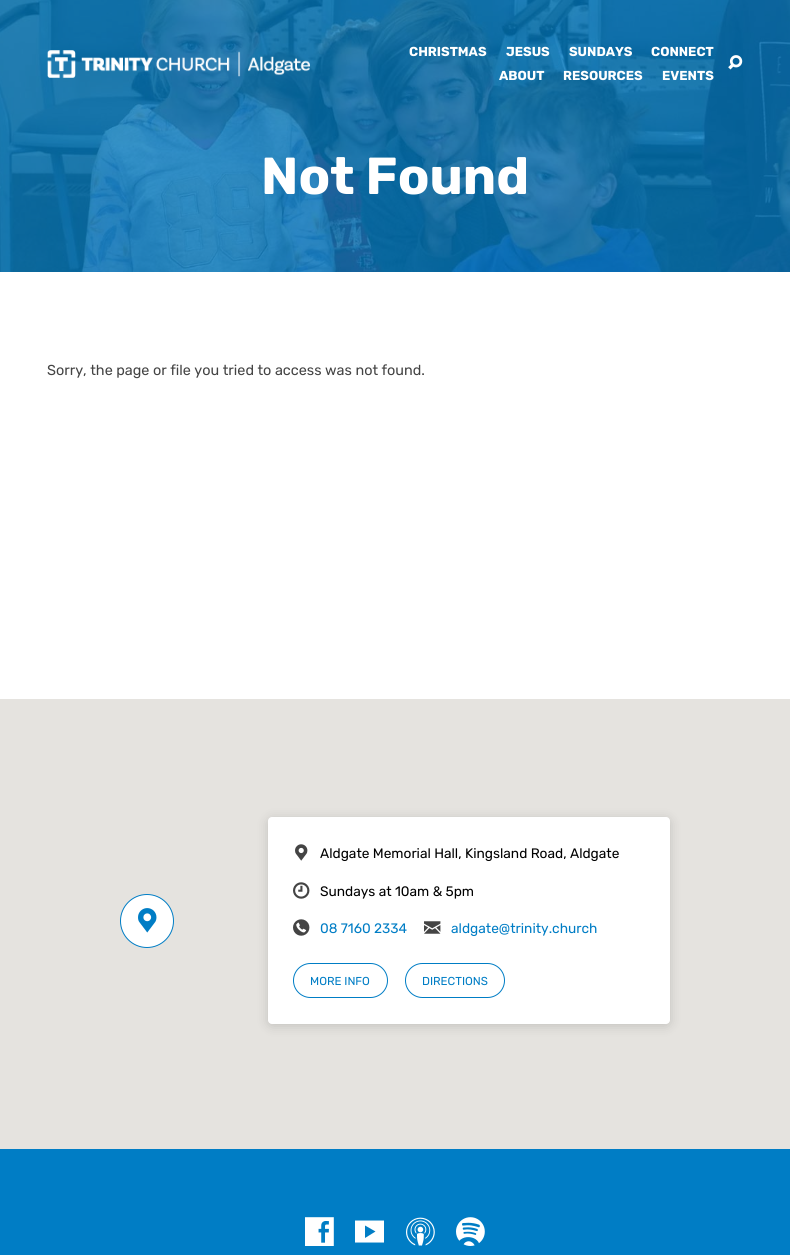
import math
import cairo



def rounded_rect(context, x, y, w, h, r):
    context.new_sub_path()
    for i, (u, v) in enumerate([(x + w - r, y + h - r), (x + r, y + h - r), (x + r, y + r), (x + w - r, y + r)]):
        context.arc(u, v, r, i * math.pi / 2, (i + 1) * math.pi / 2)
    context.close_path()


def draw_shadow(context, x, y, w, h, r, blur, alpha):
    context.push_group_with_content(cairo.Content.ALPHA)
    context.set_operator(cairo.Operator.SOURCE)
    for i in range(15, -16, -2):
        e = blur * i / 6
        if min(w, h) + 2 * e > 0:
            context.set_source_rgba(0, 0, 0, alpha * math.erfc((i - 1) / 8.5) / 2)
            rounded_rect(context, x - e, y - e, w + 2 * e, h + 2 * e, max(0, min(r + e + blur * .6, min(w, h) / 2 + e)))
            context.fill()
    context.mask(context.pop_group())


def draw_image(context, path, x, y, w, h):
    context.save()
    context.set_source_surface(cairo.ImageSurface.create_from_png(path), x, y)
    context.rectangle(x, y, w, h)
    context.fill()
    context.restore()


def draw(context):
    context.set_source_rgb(1, 1, 1)
    context.paint()
    context.set_source_rgb(0, 125 / 255, 197 / 255)
    context.rectangle(0, 0, 790, 272)
    context.fill()
    draw_image(context, "images/3.png", 0, 0, 790, 272)
    draw_image(context, "images/1.png", 47, 50, 263, 28)
    draw_image(context, "images/2.png", 728, 55, 15, 15)
    context.set_source_rgb(229 / 255, 227 / 255, 223 / 255)
    context.rectangle(0, 699, 790, 450)
    context.fill()
    context.set_source_rgb(1, 1, 1)
    context.arc(147, 921, 26.5, 0, 2 * math.pi)
    context.fill_preserve()
    context.set_source_rgb(0, 125 / 255, 197 / 255)
    context.set_line_width(1)
    context.stroke()
    draw_image(context, "images/4.png", 138, 908, 19, 25)
    context.set_source_rgb(0, 0, 0)
    draw_shadow(context, 268, 819, 402, 207, 4, 6, 0.15)
    context.set_source_rgb(1, 1, 1)
    rounded_rect(context, 268, 817, 402, 207, 4)
    context.fill()
    draw_image(context, "images/5.png", 295, 844, 13, 17)
    draw_image(context, "images/6.png", 293, 882, 17, 17)
    draw_image(context, "images/7.png", 293, 919, 17, 17)
    draw_image(context, "images/8.png", 424, 921, 17, 13)
    rounded_rect(context, 293.5, 963.5, 94, 34, 17)
    context.set_source_rgb(0, 125 / 255, 197 / 255)
    context.stroke()
    rounded_rect(context, 405.5, 963.5, 99, 34, 17)
    context.stroke()
    context.rectangle(0, 1149, 790, 106)
    context.fill()
    draw_image(context, "images/9.png", 305, 1217, 29, 29)
    context.set_source_rgb(1, 1, 1)
    context.new_path()
    context.move_to(384, 1242.5)
    context.line_to(355, 1242.5)
    context.line_to(355, 1220.5)
    context.line_to(384, 1220.5)
    context.close_path()
    context.move_to(365, 1238)
    context.line_to(375.5, 1231.5)
    context.line_to(365, 1225.5)
    context.close_path()
    context.fill()
    draw_image(context, "images/10.png", 406, 1217, 29, 29)
    draw_image(context, "images/11.png", 456, 1217, 29, 29)
    context.select_font_face("Rubik", cairo.FontSlant.NORMAL, cairo.FontWeight.BOLD)
    context.set_font_size(13)
    context.move_to(409, 56)
    context.show_text("CHRISTMAS")
    context.move_to(506, 56)
    context.show_text("JESUS")
    context.move_to(569, 56)
    context.show_text("SUNDAYS")
    context.move_to(651, 56)
    context.show_text("CONNECT")
    context.move_to(499, 80)
    context.show_text("ABOUT")
    context.move_to(563, 80)
    context.show_text("RESOURCES")
    context.move_to(662, 80)
    context.show_text("EVENTS")
    context.set_font_size(52)
    context.move_to(261, 194)
    context.show_text("Not Found")
    context.select_font_face("Rubik")
    context.set_font_size(14.4)
    context.set_source_rgb(68 / 255, 68 / 255, 68 / 255)
    context.move_to(47, 375)
    context.show_text("Sorry, the page or file you tried to access was not found.")
    context.set_font_size(13.7)
    context.set_source_rgb(0, 0, 0)
    context.move_to(320, 858)
    context.show_text("Aldgate Memorial Hall, Kingsland Road, Aldgate")
    context.move_to(320, 896)
    context.show_text("Sundays at 10am & 5pm")
    context.set_source_rgb(0, 125 / 255, 197 / 255)
    context.move_to(320, 933)
    context.show_text("08 7160 2334")
    context.move_to(451, 933)
    context.show_text("aldgate@trinity.church")
    context.set_font_size(11.5)
    context.move_to(310, 985)
    context.show_text("MORE INFO")
    context.move_to(422, 985)
    context.show_text("DIRECTIONS")


surface = cairo.ImageSurface(cairo.Format.RGB24, 790, 1255)
context = cairo.Context(surface)
options = cairo.FontOptions()
options.set_hint_metrics(cairo.HintMetrics.OFF)
options.set_hint_style(cairo.HintStyle.NONE)
context.set_font_options(options)
context.set_miter_limit(4)
draw(context)
surface.write_to_png("out.png")
